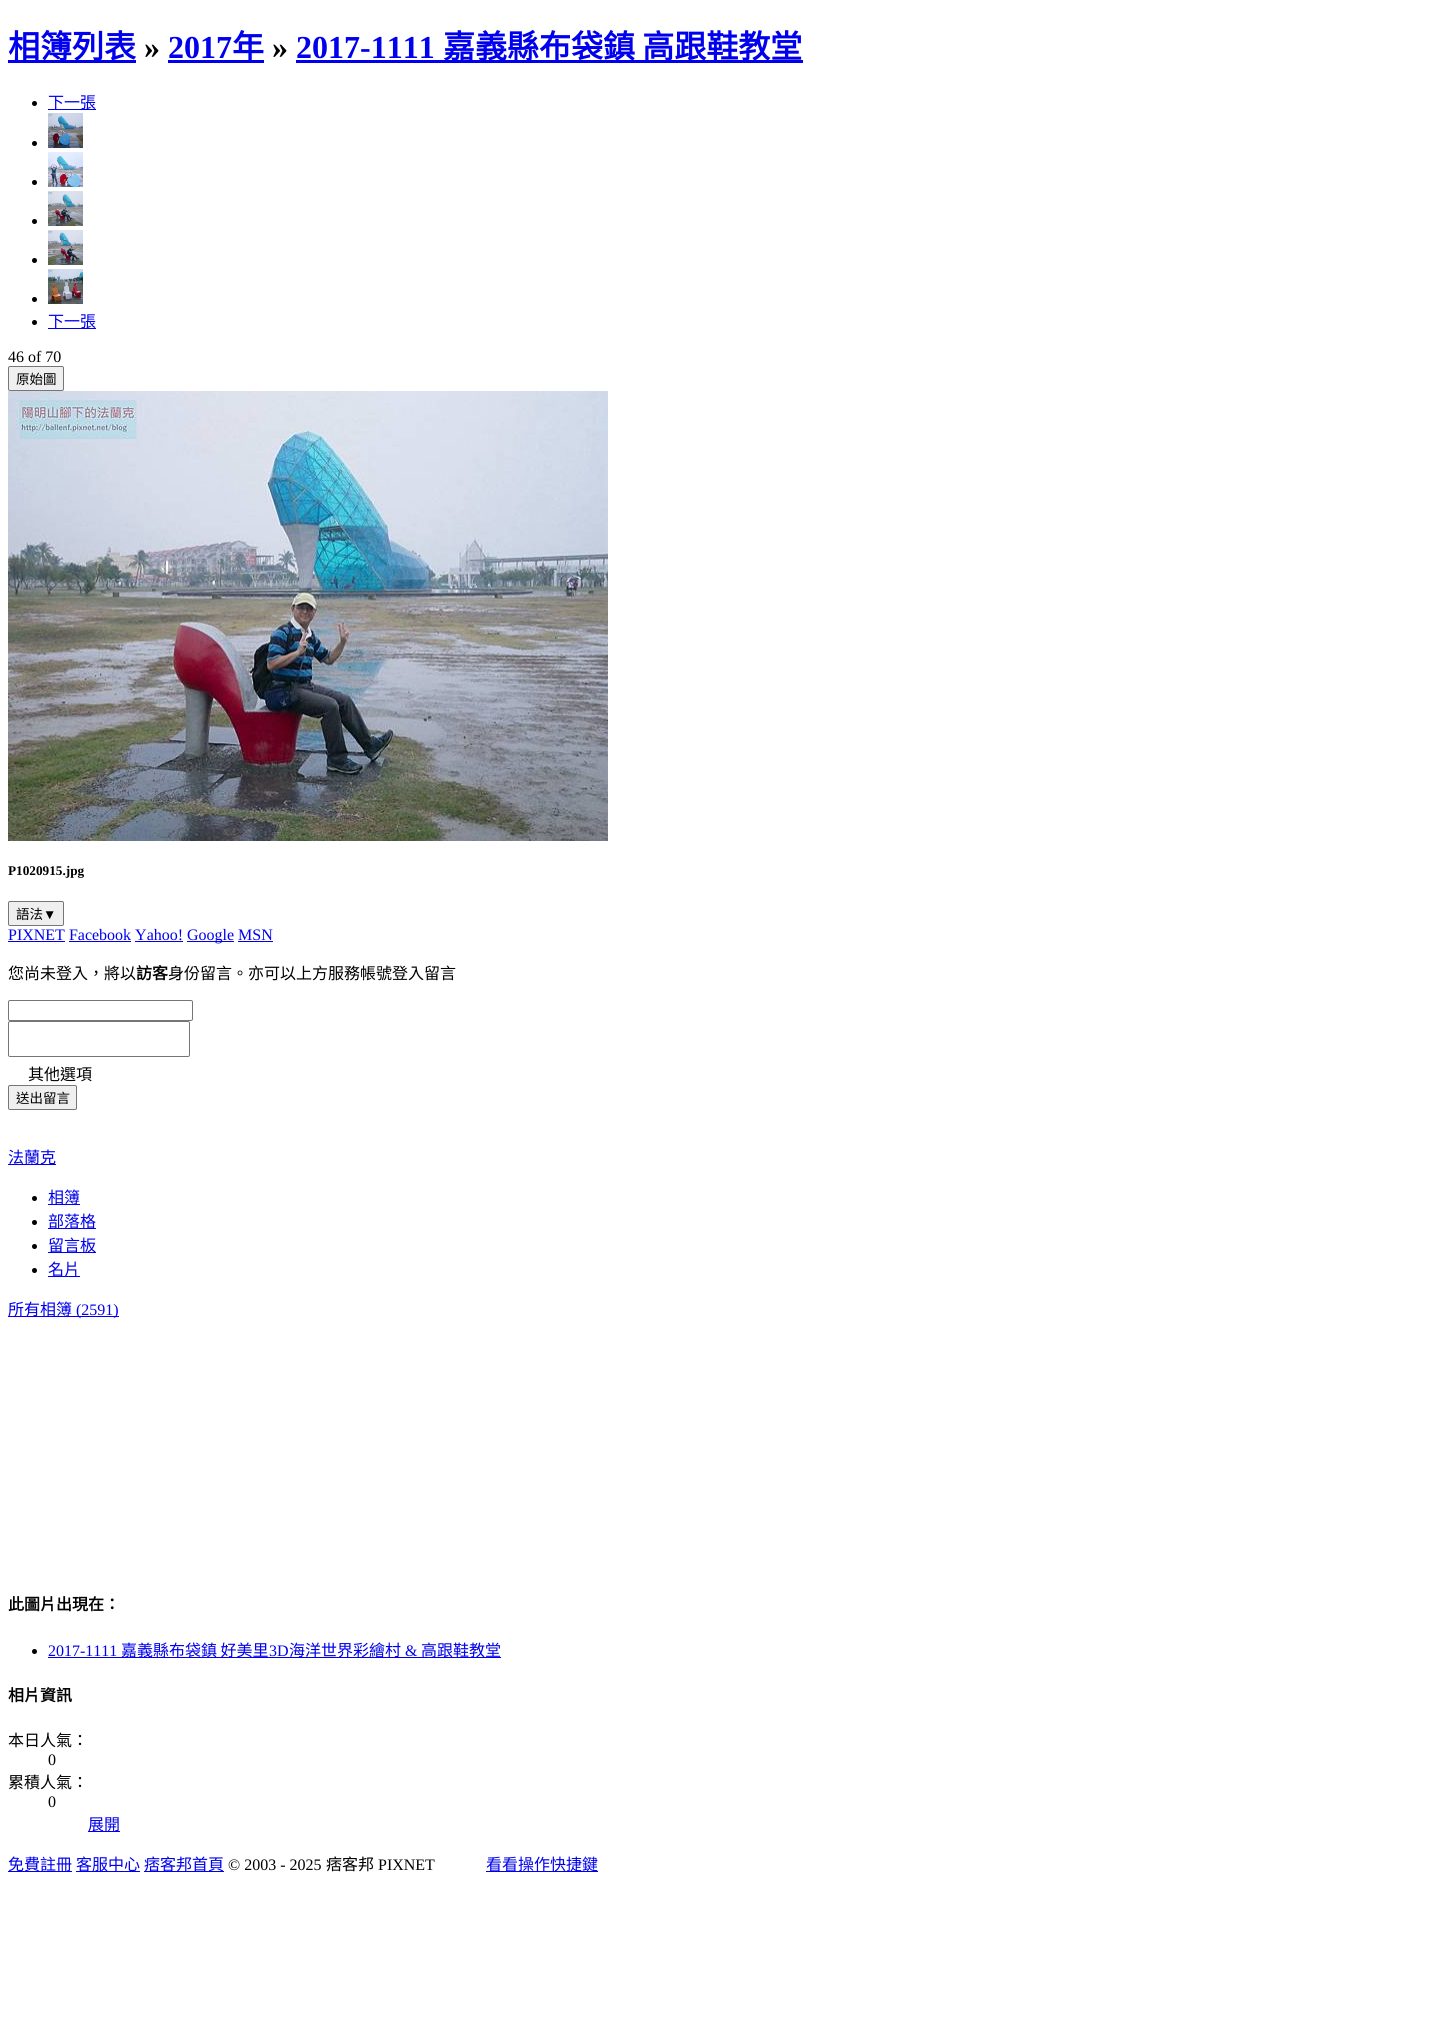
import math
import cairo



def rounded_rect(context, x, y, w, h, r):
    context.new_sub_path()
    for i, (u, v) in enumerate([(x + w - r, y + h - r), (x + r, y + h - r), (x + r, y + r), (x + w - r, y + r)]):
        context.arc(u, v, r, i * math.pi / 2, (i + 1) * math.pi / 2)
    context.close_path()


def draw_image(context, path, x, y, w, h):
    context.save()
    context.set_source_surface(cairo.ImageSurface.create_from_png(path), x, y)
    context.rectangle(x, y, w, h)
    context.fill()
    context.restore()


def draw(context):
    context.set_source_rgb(1, 1, 1)
    context.paint()
    context.set_source_rgb(0, 0, 238 / 255)
    context.rectangle(8, 60, 128, 3)
    context.fill()
    context.rectangle(168, 60, 96, 3)
    context.fill()
    context.rectangle(296, 60, 507, 3)
    context.fill()
    context.set_source_rgb(0, 0, 0)
    context.arc(34.5, 103.5, 2.5, 0, 2 * math.pi)
    context.fill()
    context.set_source_rgb(0, 0, 238 / 255)
    context.rectangle(48, 109, 48, 1)
    context.fill()
    context.set_source_rgb(0, 0, 0)
    context.arc(34.5, 143.5, 2.5, 0, 2 * math.pi)
    context.fill()
    draw_image(context, "images/1.png", 48, 113, 35, 35)
    context.arc(34.5, 182.5, 2.5, 0, 2 * math.pi)
    context.fill()
    draw_image(context, "images/2.png", 48, 152, 35, 35)
    context.arc(34.5, 221.5, 2.5, 0, 2 * math.pi)
    context.fill()
    draw_image(context, "images/3.png", 48, 191, 35, 35)
    context.arc(34.5, 260.5, 2.5, 0, 2 * math.pi)
    context.fill()
    draw_image(context, "images/4.png", 48, 230, 35, 35)
    context.arc(34.5, 299.5, 2.5, 0, 2 * math.pi)
    context.fill()
    draw_image(context, "images/5.png", 48, 269, 35, 35)
    context.arc(34.5, 322.5, 2.5, 0, 2 * math.pi)
    context.fill()
    context.set_source_rgb(0, 0, 238 / 255)
    context.rectangle(48, 328, 48, 1)
    context.fill()
    context.set_source_rgb(239 / 255, 239 / 255, 239 / 255)
    rounded_rect(context, 8.5, 366.5, 55, 24, 1.5)
    context.fill_preserve()
    context.set_source_rgb(118 / 255, 118 / 255, 118 / 255)
    context.set_line_width(1)
    context.stroke()
    draw_image(context, "images/6.png", 8, 391, 600, 450)
    context.set_source_rgb(239 / 255, 239 / 255, 239 / 255)
    rounded_rect(context, 8.5, 901.5, 55, 24, 1.5)
    context.fill_preserve()
    context.set_source_rgb(118 / 255, 118 / 255, 118 / 255)
    context.stroke()
    context.set_source_rgb(0, 0, 238 / 255)
    context.rectangle(8, 941, 57, 1)
    context.fill()
    context.rectangle(187, 941, 47, 1)
    context.fill()
    context.rectangle(69, 941, 62, 1)
    context.fill()
    context.rectangle(135, 941, 48, 1)
    context.fill()
    context.rectangle(238, 941, 35, 1)
    context.fill()
    rounded_rect(context, 8.5, 1000.5, 184, 20, 1.5)
    context.set_source_rgb(118 / 255, 118 / 255, 118 / 255)
    context.stroke()
    rounded_rect(context, 8.5, 1021.5, 181, 35, 1.5)
    context.stroke()
    context.set_source_rgb(239 / 255, 239 / 255, 239 / 255)
    rounded_rect(context, 8.5, 1085.5, 68, 24, 1.5)
    context.fill_preserve()
    context.set_source_rgb(118 / 255, 118 / 255, 118 / 255)
    context.stroke()
    context.set_source_rgb(0, 0, 238 / 255)
    context.rectangle(8, 1164, 48, 1)
    context.fill()
    context.set_source_rgb(0, 0, 0)
    context.arc(34.5, 1198.5, 2.5, 0, 2 * math.pi)
    context.fill()
    context.set_source_rgb(0, 0, 238 / 255)
    context.rectangle(48, 1204, 32, 1)
    context.fill()
    context.set_source_rgb(0, 0, 0)
    context.arc(34.5, 1222.5, 2.5, 0, 2 * math.pi)
    context.fill()
    context.set_source_rgb(0, 0, 238 / 255)
    context.rectangle(48, 1228, 48, 1)
    context.fill()
    context.set_source_rgb(0, 0, 0)
    context.arc(34.5, 1246.5, 2.5, 0, 2 * math.pi)
    context.fill()
    context.set_source_rgb(0, 0, 238 / 255)
    context.rectangle(48, 1252, 48, 1)
    context.fill()
    context.set_source_rgb(0, 0, 0)
    context.arc(34.5, 1270.5, 2.5, 0, 2 * math.pi)
    context.fill()
    context.set_source_rgb(0, 0, 238 / 255)
    context.rectangle(48, 1276, 32, 1)
    context.fill()
    context.rectangle(8, 1316, 111, 1)
    context.fill()
    context.set_source_rgb(0, 0, 0)
    context.arc(34.5, 1651.5, 2.5, 0, 2 * math.pi)
    context.fill()
    context.set_source_rgb(0, 0, 238 / 255)
    context.rectangle(48, 1657, 453, 1)
    context.fill()
    context.rectangle(88, 1831, 32, 1)
    context.fill()
    context.rectangle(8, 1871, 64, 1)
    context.fill()
    context.rectangle(76, 1871, 64, 1)
    context.fill()
    context.rectangle(144, 1871, 80, 1)
    context.fill()
    context.rectangle(486, 1871, 112, 1)
    context.fill()
    context.select_font_face("Noto Sans CJK TC", cairo.FontSlant.NORMAL, cairo.FontWeight.BOLD)
    context.set_font_size(32)
    context.move_to(8, 58)
    context.show_text("相簿列表")
    context.select_font_face("Liberation Serif", cairo.FontSlant.NORMAL, cairo.FontWeight.BOLD)
    context.set_source_rgb(0, 0, 0)
    context.move_to(144, 58)
    context.show_text("»")
    context.set_source_rgb(0, 0, 238 / 255)
    context.move_to(168, 58)
    context.show_text("2017")
    context.select_font_face("Noto Sans CJK TC", cairo.FontSlant.NORMAL, cairo.FontWeight.BOLD)
    context.move_to(232, 58)
    context.show_text("年")
    context.select_font_face("Liberation Serif", cairo.FontSlant.NORMAL, cairo.FontWeight.BOLD)
    context.set_source_rgb(0, 0, 0)
    context.move_to(272, 58)
    context.show_text("»")
    context.set_source_rgb(0, 0, 238 / 255)
    context.move_to(296, 58)
    context.show_text("2017-1111")
    context.select_font_face("Noto Sans CJK TC", cairo.FontSlant.NORMAL, cairo.FontWeight.BOLD)
    context.move_to(443, 58)
    context.show_text("嘉義縣布袋鎮 高跟鞋教堂")
    context.select_font_face("Noto Sans CJK TC")
    context.set_font_size(16)
    context.move_to(48, 108)
    context.show_text("下一張")
    context.move_to(48, 327)
    context.show_text("下一張")
    context.select_font_face("Liberation Serif")
    context.set_source_rgb(0, 0, 0)
    context.move_to(8, 362)
    context.show_text("46 of 70")
    context.select_font_face("Noto Sans CJK TC")
    context.set_font_size(13.5)
    context.move_to(16, 384)
    context.show_text("原始圖")
    context.select_font_face("Liberation Serif", cairo.FontSlant.NORMAL, cairo.FontWeight.BOLD)
    context.set_font_size(13.25)
    context.move_to(8, 875)
    context.show_text("P1020915.jpg")
    context.select_font_face("Noto Sans CJK TC")
    context.set_font_size(13.5)
    context.move_to(16, 919)
    context.show_text("語法")
    context.select_font_face("Liberation Sans")
    context.move_to(43, 919)
    context.show_text("▼")
    context.select_font_face("Liberation Serif")
    context.set_font_size(16)
    context.set_source_rgb(0, 0, 238 / 255)
    context.move_to(8, 940)
    context.show_text("PIXNET Facebook Yahoo!")
    context.move_to(187, 940)
    context.show_text("Google MSN")
    context.select_font_face("Noto Sans CJK TC")
    context.set_source_rgb(0, 0, 0)
    context.move_to(8, 979)
    context.show_text("您尚未登入，將以")
    context.select_font_face("Noto Sans CJK TC", cairo.FontSlant.NORMAL, cairo.FontWeight.BOLD)
    context.move_to(136, 979)
    context.show_text("訪客")
    context.select_font_face("Noto Sans CJK TC")
    context.move_to(168, 979)
    context.show_text("身份留言。亦可以上方服務帳號登入留言")
    context.move_to(28, 1080)
    context.show_text("其他選項")
    context.set_font_size(13.5)
    context.move_to(16, 1103)
    context.show_text("送出留言")
    context.set_font_size(16)
    context.set_source_rgb(0, 0, 238 / 255)
    context.move_to(8, 1163)
    context.show_text("法蘭克")
    context.move_to(48, 1203)
    context.show_text("相簿")
    context.move_to(48, 1227)
    context.show_text("部落格")
    context.move_to(48, 1251)
    context.show_text("留言板")
    context.move_to(48, 1275)
    context.show_text("名片")
    context.move_to(8, 1315)
    context.show_text("所有相簿")
    context.select_font_face("Liberation Serif")
    context.move_to(76, 1315)
    context.show_text("(2591)")
    context.select_font_face("Noto Sans CJK TC", cairo.FontSlant.NORMAL, cairo.FontWeight.BOLD)
    context.set_source_rgb(0, 0, 0)
    context.move_to(8, 1610)
    context.show_text("此圖片出現在：")
    context.select_font_face("Liberation Serif")
    context.set_source_rgb(0, 0, 238 / 255)
    context.move_to(48, 1656)
    context.show_text("2017-1111")
    context.select_font_face("Noto Sans CJK TC")
    context.move_to(121, 1656)
    context.show_text("嘉義縣布袋鎮 好美里")
    context.select_font_face("Liberation Serif")
    context.move_to(269, 1656)
    context.show_text("3D")
    context.select_font_face("Noto Sans CJK TC")
    context.move_to(289, 1656)
    context.show_text("海洋世界彩繪村")
    context.select_font_face("Liberation Serif")
    context.move_to(405, 1656)
    context.show_text("&")
    context.select_font_face("Noto Sans CJK TC")
    context.move_to(421, 1656)
    context.show_text("高跟鞋教堂")
    context.select_font_face("Noto Sans CJK TC", cairo.FontSlant.NORMAL, cairo.FontWeight.BOLD)
    context.set_source_rgb(0, 0, 0)
    context.move_to(8, 1701)
    context.show_text("相片資訊")
    context.select_font_face("Noto Sans CJK TC")
    context.move_to(8, 1746)
    context.show_text("本日人氣：")
    context.select_font_face("Liberation Serif")
    context.move_to(48, 1765)
    context.show_text("0")
    context.select_font_face("Noto Sans CJK TC")
    context.move_to(8, 1788)
    context.show_text("累積人氣：")
    context.select_font_face("Liberation Serif")
    context.move_to(48, 1807)
    context.show_text("0")
    context.select_font_face("Noto Sans CJK TC")
    context.set_source_rgb(0, 0, 238 / 255)
    context.move_to(88, 1830)
    context.show_text("展開")
    context.move_to(8, 1870)
    context.show_text("免費註冊")
    context.move_to(76, 1870)
    context.show_text("客服中心")
    context.move_to(144, 1870)
    context.show_text("痞客邦首頁")
    context.select_font_face("Liberation Serif")
    context.set_source_rgb(0, 0, 0)
    context.move_to(228, 1870)
    context.show_text("© 2003 - 2025")
    context.select_font_face("Noto Sans CJK TC")
    context.move_to(326, 1870)
    context.show_text("痞客邦")
    context.select_font_face("Liberation Serif")
    context.move_to(378, 1870)
    context.show_text("PIXNET")
    context.select_font_face("Noto Sans CJK TC")
    context.set_source_rgb(0, 0, 238 / 255)
    context.move_to(486, 1870)
    context.show_text("看看操作快捷鍵")


surface = cairo.ImageSurface(cairo.Format.RGB24, 1451, 2041)
context = cairo.Context(surface)
options = cairo.FontOptions()
options.set_hint_metrics(cairo.HintMetrics.OFF)
options.set_hint_style(cairo.HintStyle.NONE)
context.set_font_options(options)
context.set_miter_limit(4)
draw(context)
surface.write_to_png("out.png")
